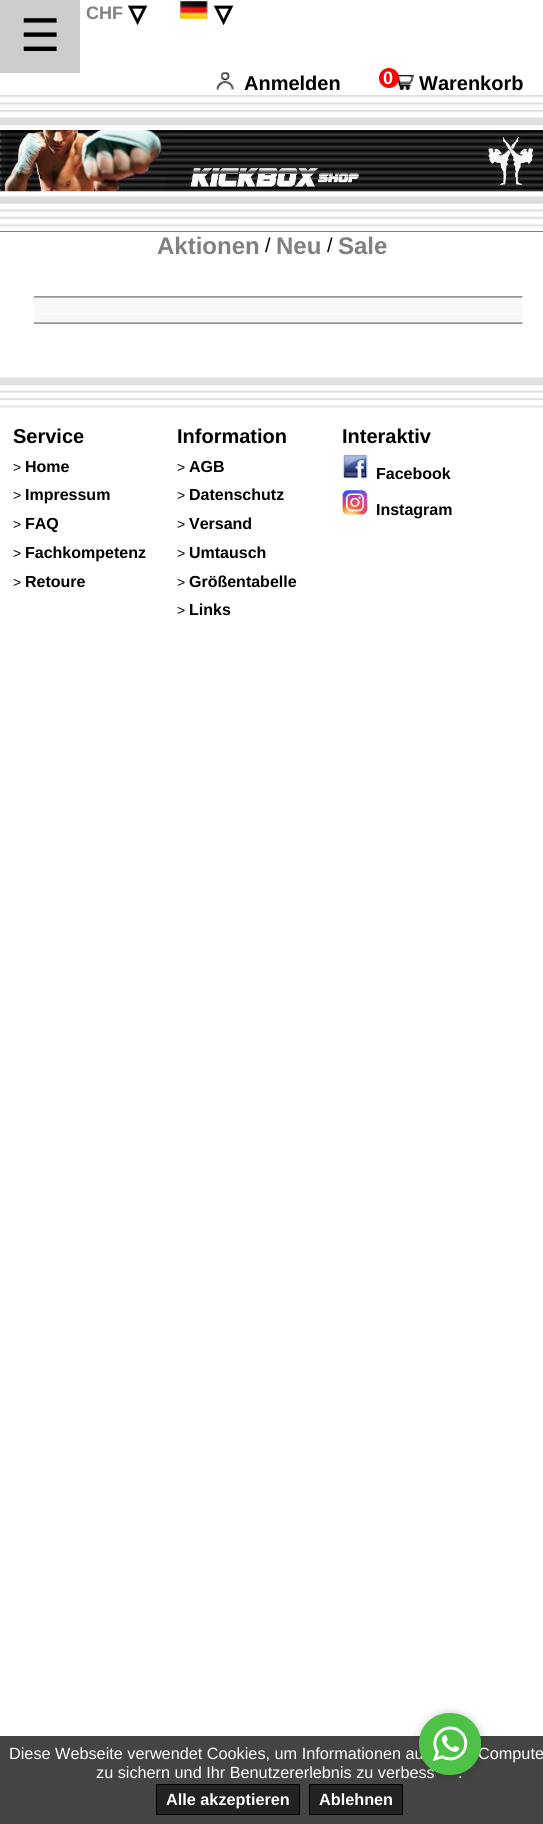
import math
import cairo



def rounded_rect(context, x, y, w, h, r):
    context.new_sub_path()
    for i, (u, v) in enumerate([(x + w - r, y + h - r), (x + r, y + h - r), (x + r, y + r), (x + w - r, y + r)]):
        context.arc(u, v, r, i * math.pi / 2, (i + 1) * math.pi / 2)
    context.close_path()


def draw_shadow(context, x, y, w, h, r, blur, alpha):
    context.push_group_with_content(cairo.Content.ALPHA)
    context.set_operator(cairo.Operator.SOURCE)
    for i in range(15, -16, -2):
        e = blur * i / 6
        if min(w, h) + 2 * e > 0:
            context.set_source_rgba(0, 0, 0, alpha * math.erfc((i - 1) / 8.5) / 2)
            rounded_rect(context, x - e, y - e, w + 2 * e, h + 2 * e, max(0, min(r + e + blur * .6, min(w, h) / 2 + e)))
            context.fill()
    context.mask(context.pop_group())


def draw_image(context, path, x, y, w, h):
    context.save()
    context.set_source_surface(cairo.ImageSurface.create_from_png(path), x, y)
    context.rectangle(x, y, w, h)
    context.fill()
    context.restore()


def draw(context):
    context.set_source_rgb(1, 1, 1)
    context.paint()
    draw_image(context, "images/1.png", 180, 1, 28, 18)
    context.set_source_rgb(204 / 255, 204 / 255, 204 / 255)
    context.rectangle(0, 0, 80, 73)
    context.fill()
    draw_image(context, "images/2.png", 216, 72, 18, 18)
    draw_image(context, "images/3.png", 397, 73, 17, 17)
    context.set_source_rgb(1, 0, 0)
    context.arc(389, 78, 10, 0, 2 * math.pi)
    context.fill()
    draw_image(context, "images/4.png", 0, 95, 543, 30)
    draw_image(context, "images/5.png", 0, 130, 543, 62)
    draw_image(context, "images/6.png", 0, 196, 543, 31)
    context.set_source_rgb(128 / 255, 128 / 255, 128 / 255)
    context.rectangle(0, 231, 543, 1)
    context.fill()
    draw_image(context, "images/7.png", 33, 296, 490, 28)
    draw_image(context, "images/8.png", 0, 377, 543, 31)
    draw_image(context, "images/9.png", 343, 454, 25, 25)
    draw_image(context, "images/10.png", 342, 490, 26, 25)
    context.set_source_rgb(68 / 255, 68 / 255, 68 / 255)
    context.rectangle(0, 1736, 543, 88)
    context.fill()
    context.set_source_rgb(34 / 255, 34 / 255, 34 / 255)
    context.rectangle(156.5, 1784.5, 143, 30)
    context.fill_preserve()
    context.set_source_rgb(0, 0, 0)
    context.set_line_width(1)
    context.stroke()
    context.set_source_rgb(34 / 255, 34 / 255, 34 / 255)
    context.rectangle(309.5, 1784.5, 93, 30)
    context.fill_preserve()
    context.set_source_rgb(0, 0, 0)
    context.stroke()
    context.set_source_rgb(0, 0, 0)
    draw_shadow(context, 419, 1713, 62, 62, 30, 4.5, 0.2)
    context.select_font_face("Liberation Sans", cairo.FontSlant.NORMAL, cairo.FontWeight.BOLD)
    context.set_font_size(18)
    context.set_source_rgb(128 / 255, 128 / 255, 128 / 255)
    context.move_to(86, 19)
    context.show_text("CHF")
    context.select_font_face("DejaVu Sans", cairo.FontSlant.NORMAL, cairo.FontWeight.BOLD)
    context.set_font_size(36)
    context.set_source_rgb(0, 0, 0)
    context.move_to(128, 25)
    context.show_text("▿")
    context.move_to(214, 25)
    context.show_text("▿")
    context.select_font_face("DejaVu Sans")
    context.set_font_size(45)
    context.move_to(20, 51)
    context.show_text("☰")
    context.select_font_face("Liberation Sans", cairo.FontSlant.NORMAL, cairo.FontWeight.BOLD)
    context.set_font_size(20)
    context.move_to(244, 90)
    context.show_text("Anmelden")
    context.set_font_size(18)
    context.set_source_rgb(1, 1, 1)
    context.move_to(383, 84)
    context.show_text("0")
    context.set_font_size(20)
    context.set_source_rgb(0, 0, 0)
    context.move_to(419, 90)
    context.show_text("Warenkorb")
    context.set_font_size(24)
    context.set_source_rgb(128 / 255, 128 / 255, 128 / 255)
    context.move_to(157, 254)
    context.show_text("Aktionen")
    context.select_font_face("Liberation Sans")
    context.set_font_size(20)
    context.set_source_rgb(0, 0, 0)
    context.move_to(265, 252)
    context.show_text("/")
    context.select_font_face("Liberation Sans", cairo.FontSlant.NORMAL, cairo.FontWeight.BOLD)
    context.set_font_size(24)
    context.set_source_rgb(128 / 255, 128 / 255, 128 / 255)
    context.move_to(276, 254)
    context.show_text("Neu")
    context.select_font_face("Liberation Sans")
    context.set_font_size(20)
    context.set_source_rgb(0, 0, 0)
    context.move_to(327, 252)
    context.show_text("/")
    context.select_font_face("Liberation Sans", cairo.FontSlant.NORMAL, cairo.FontWeight.BOLD)
    context.set_font_size(24)
    context.set_source_rgb(128 / 255, 128 / 255, 128 / 255)
    context.move_to(338, 254)
    context.show_text("Sale")
    context.set_font_size(20)
    context.set_source_rgb(0, 0, 0)
    context.move_to(13, 443)
    context.show_text("Service")
    context.select_font_face("Liberation Sans")
    context.set_font_size(14)
    context.move_to(13, 472)
    context.show_text(">")
    context.select_font_face("Liberation Sans", cairo.FontSlant.NORMAL, cairo.FontWeight.BOLD)
    context.set_font_size(16)
    context.move_to(25, 472)
    context.show_text("Home")
    context.select_font_face("Liberation Sans")
    context.set_font_size(14)
    context.move_to(13, 500)
    context.show_text(">")
    context.select_font_face("Liberation Sans", cairo.FontSlant.NORMAL, cairo.FontWeight.BOLD)
    context.set_font_size(16)
    context.move_to(25, 500)
    context.show_text("Impressum")
    context.select_font_face("Liberation Sans")
    context.set_font_size(14)
    context.move_to(13, 529)
    context.show_text(">")
    context.select_font_face("Liberation Sans", cairo.FontSlant.NORMAL, cairo.FontWeight.BOLD)
    context.set_font_size(16)
    context.move_to(25, 529)
    context.show_text("FAQ")
    context.select_font_face("Liberation Sans")
    context.set_font_size(14)
    context.move_to(13, 558)
    context.show_text(">")
    context.select_font_face("Liberation Sans", cairo.FontSlant.NORMAL, cairo.FontWeight.BOLD)
    context.set_font_size(16)
    context.move_to(25, 558)
    context.show_text("Fachkompetenz")
    context.select_font_face("Liberation Sans")
    context.set_font_size(14)
    context.move_to(13, 587)
    context.show_text(">")
    context.select_font_face("Liberation Sans", cairo.FontSlant.NORMAL, cairo.FontWeight.BOLD)
    context.set_font_size(16)
    context.move_to(25, 587)
    context.show_text("Retoure")
    context.set_font_size(20)
    context.move_to(177, 443)
    context.show_text("Information")
    context.select_font_face("Liberation Sans")
    context.set_font_size(14)
    context.move_to(177, 472)
    context.show_text(">")
    context.select_font_face("Liberation Sans", cairo.FontSlant.NORMAL, cairo.FontWeight.BOLD)
    context.set_font_size(16)
    context.move_to(189, 472)
    context.show_text("AGB")
    context.select_font_face("Liberation Sans")
    context.set_font_size(14)
    context.move_to(177, 500)
    context.show_text(">")
    context.select_font_face("Liberation Sans", cairo.FontSlant.NORMAL, cairo.FontWeight.BOLD)
    context.set_font_size(16)
    context.move_to(189, 500)
    context.show_text("Datenschutz")
    context.select_font_face("Liberation Sans")
    context.set_font_size(14)
    context.move_to(177, 529)
    context.show_text(">")
    context.select_font_face("Liberation Sans", cairo.FontSlant.NORMAL, cairo.FontWeight.BOLD)
    context.set_font_size(16)
    context.move_to(189, 529)
    context.show_text("Versand")
    context.select_font_face("Liberation Sans")
    context.set_font_size(14)
    context.move_to(177, 558)
    context.show_text(">")
    context.select_font_face("Liberation Sans", cairo.FontSlant.NORMAL, cairo.FontWeight.BOLD)
    context.set_font_size(16)
    context.move_to(189, 558)
    context.show_text("Umtausch")
    context.select_font_face("Liberation Sans")
    context.set_font_size(14)
    context.move_to(177, 587)
    context.show_text(">")
    context.select_font_face("Liberation Sans", cairo.FontSlant.NORMAL, cairo.FontWeight.BOLD)
    context.set_font_size(16)
    context.move_to(189, 587)
    context.show_text("Größentabelle")
    context.select_font_face("Liberation Sans")
    context.set_font_size(14)
    context.move_to(177, 615)
    context.show_text(">")
    context.select_font_face("Liberation Sans", cairo.FontSlant.NORMAL, cairo.FontWeight.BOLD)
    context.set_font_size(16)
    context.move_to(189, 615)
    context.show_text("Links")
    context.set_font_size(20)
    context.move_to(342, 443)
    context.show_text("Interaktiv")
    context.set_font_size(16)
    context.move_to(376, 479)
    context.show_text("Facebook")
    context.move_to(376, 515)
    context.show_text("Instagram")
    context.select_font_face("Liberation Sans")
    context.set_font_size(16.25)
    context.set_source_rgb(1, 1, 1)
    context.move_to(9, 1759)
    context.show_text("Diese Webseite verwendet Cookies, um Informationen au")
    context.move_to(478, 1759)
    context.show_text("Compute")
    context.move_to(96, 1778)
    context.show_text("zu sichern und Ihr Benutzererlebnis zu verbess")
    context.move_to(458, 1778)
    context.show_text(".")
    context.select_font_face("Liberation Sans", cairo.FontSlant.NORMAL, cairo.FontWeight.BOLD)
    context.move_to(166, 1805)
    context.show_text("Alle akzeptieren")
    context.move_to(319, 1805)
    context.show_text("Ablehnen")
    context.set_source_rgb(77 / 255, 194 / 255, 71 / 255)
    rounded_rect(context, 419, 1713, 62, 62, 30)
    context.fill()
    draw_image(context, "images/11.png", 432, 1726, 36, 36)


surface = cairo.ImageSurface(cairo.Format.RGB24, 543, 1824)
context = cairo.Context(surface)
options = cairo.FontOptions()
options.set_hint_metrics(cairo.HintMetrics.OFF)
options.set_hint_style(cairo.HintStyle.NONE)
context.set_font_options(options)
context.set_miter_limit(4)
draw(context)
surface.write_to_png("out.png")
